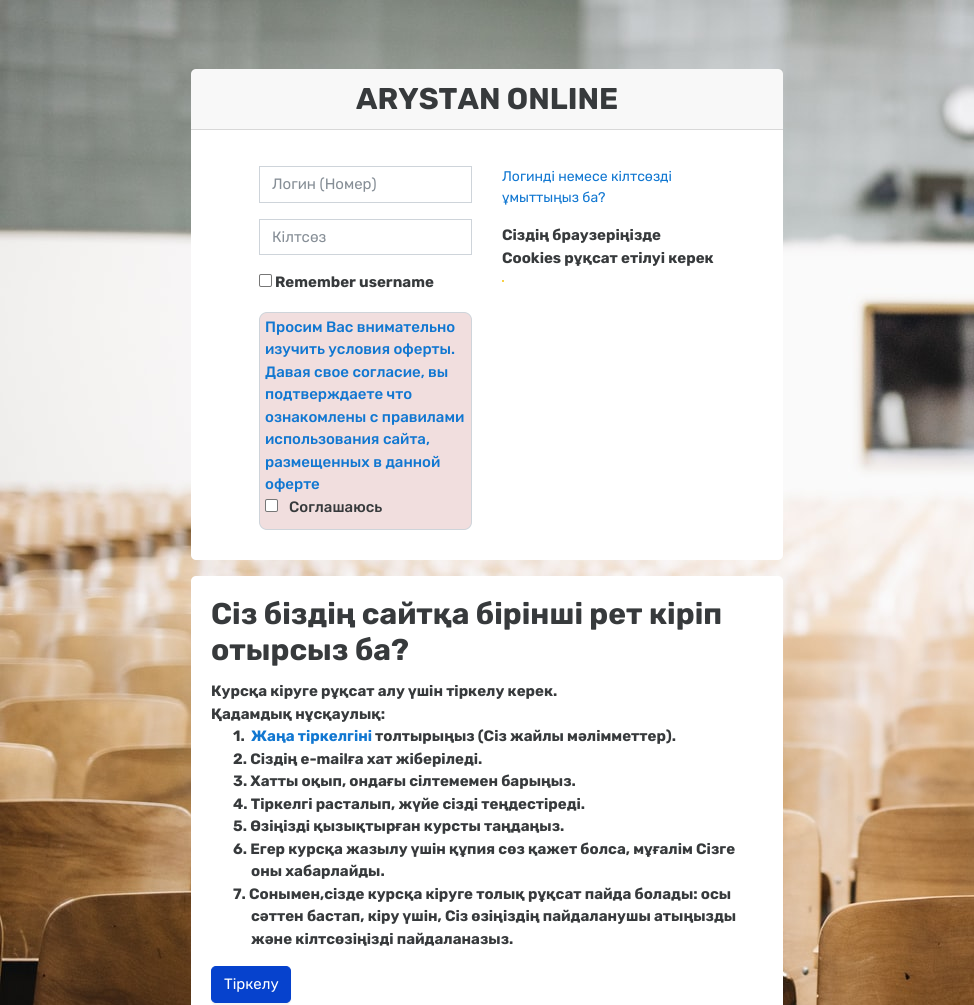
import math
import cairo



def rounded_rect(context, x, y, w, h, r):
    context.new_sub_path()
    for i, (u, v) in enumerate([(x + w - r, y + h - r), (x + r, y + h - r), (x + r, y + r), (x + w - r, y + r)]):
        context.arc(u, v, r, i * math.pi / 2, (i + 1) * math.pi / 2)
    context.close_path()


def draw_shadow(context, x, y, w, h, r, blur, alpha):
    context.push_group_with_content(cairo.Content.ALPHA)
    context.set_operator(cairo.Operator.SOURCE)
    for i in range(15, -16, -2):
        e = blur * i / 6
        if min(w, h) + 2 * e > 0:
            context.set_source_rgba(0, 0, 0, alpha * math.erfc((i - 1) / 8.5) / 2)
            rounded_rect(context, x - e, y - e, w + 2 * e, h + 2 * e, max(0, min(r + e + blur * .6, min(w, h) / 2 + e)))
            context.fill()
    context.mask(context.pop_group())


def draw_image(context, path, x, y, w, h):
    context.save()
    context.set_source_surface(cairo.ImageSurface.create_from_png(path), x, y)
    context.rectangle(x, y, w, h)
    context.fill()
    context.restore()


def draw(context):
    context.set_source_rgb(1, 1, 1)
    context.paint()
    draw_image(context, "images/1.png", 0, 0, 974, 1005)
    context.set_source_rgb(1, 1, 1)
    rounded_rect(context, 191, 69, 592, 491, 5)
    context.fill()
    context.set_source_rgba(0, 0, 0, 0.03)
    context.rectangle(191, 69, 592, 60)
    context.fill()
    context.set_source_rgb(216 / 255, 216 / 255, 216 / 255)
    context.rectangle(191, 129, 592, 1)
    context.fill()
    context.rectangle(259.5, 166.5, 212, 36)
    context.set_source_rgb(206 / 255, 212 / 255, 218 / 255)
    context.set_line_width(1)
    context.stroke()
    context.rectangle(259.5, 219.5, 212, 35)
    context.stroke()
    rounded_rect(context, 259.5, 274.5, 12, 12, 1.5)
    context.set_source_rgb(118 / 255, 118 / 255, 118 / 255)
    context.stroke()
    context.set_source_rgb(241 / 255, 222 / 255, 222 / 255)
    rounded_rect(context, 259.5, 312.5, 212, 217, 7.5)
    context.fill_preserve()
    context.set_source_rgb(206 / 255, 212 / 255, 218 / 255)
    context.stroke()
    context.set_source_rgb(1, 1, 1)
    rounded_rect(context, 265.5, 499.5, 12, 12, 1.5)
    context.fill_preserve()
    context.set_source_rgb(118 / 255, 118 / 255, 118 / 255)
    context.stroke()
    context.set_source_rgb(245 / 255, 193 / 255, 9 / 255)
    context.arc(503, 281, 1, 0, 2 * math.pi)
    context.fill()
    context.set_source_rgb(1, 1, 1)
    rounded_rect(context, 191, 576, 592, 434, 5)
    context.fill()
    context.set_source_rgb(0, 0, 0)
    draw_shadow(context, 211, 968, 80, 37, 5, 0.5, 0.05)
    context.set_source_rgb(6 / 255, 66 / 255, 205 / 255)
    rounded_rect(context, 211.5, 966.5, 79, 36, 4.5)
    context.fill_preserve()
    context.stroke()
    context.select_font_face("Rubik", cairo.FontSlant.NORMAL, cairo.FontWeight.BOLD)
    context.set_font_size(30)
    context.set_source_rgb(55 / 255, 58 / 255, 60 / 255)
    context.move_to(356, 109)
    context.show_text("ARYSTAN ONLINE")
    context.select_font_face("Rubik")
    context.set_font_size(15)
    context.set_source_rgb(134 / 255, 142 / 255, 150 / 255)
    context.move_to(272, 189)
    context.show_text("Логин (Номер)")
    context.move_to(272, 242)
    context.show_text("Кілтсөз")
    context.select_font_face("Rubik", cairo.FontSlant.NORMAL, cairo.FontWeight.BOLD)
    context.set_source_rgb(55 / 255, 58 / 255, 60 / 255)
    context.move_to(275, 287)
    context.show_text("Remember username")
    context.select_font_face("Rubik Medium")
    context.set_source_rgb(17 / 255, 119 / 255, 209 / 255)
    context.move_to(265, 332)
    context.show_text("Просим Вас внимательно")
    context.move_to(265, 354)
    context.show_text("изучить условия оферты.")
    context.move_to(265, 377)
    context.show_text("Давая свое согласие, вы")
    context.move_to(265, 399)
    context.show_text("подтверждаете что")
    context.move_to(265, 422)
    context.show_text("ознакомлены с правилами")
    context.move_to(265, 444)
    context.show_text("использования сайта,")
    context.move_to(265, 467)
    context.show_text("размещенных в данной")
    context.move_to(265, 489)
    context.show_text("оферте")
    context.set_source_rgb(55 / 255, 58 / 255, 60 / 255)
    context.move_to(289, 512)
    context.show_text("Соглашаюсь")
    context.select_font_face("Rubik")
    context.set_font_size(14)
    context.set_source_rgb(17 / 255, 119 / 255, 209 / 255)
    context.move_to(502, 181)
    context.show_text("Логинді немесе кілтсөзді")
    context.move_to(502, 202)
    context.show_text("ұмыттыңыз ба?")
    context.select_font_face("Rubik", cairo.FontSlant.NORMAL, cairo.FontWeight.BOLD)
    context.set_font_size(15)
    context.set_source_rgb(55 / 255, 58 / 255, 60 / 255)
    context.move_to(502, 240)
    context.show_text("Сіздің браузеріңізде")
    context.move_to(502, 263)
    context.show_text("Cookies рұқсат етілуі керек")
    context.set_font_size(30)
    context.move_to(211, 624)
    context.show_text("Сіз біздің сайтқа бірінші рет кіріп")
    context.move_to(211, 660)
    context.show_text("отырсыз ба?")
    context.set_font_size(15)
    context.move_to(211, 696)
    context.show_text("Курсқа кіруге рұқсат алу үшін тіркелу керек.")
    context.move_to(211, 719)
    context.show_text("Қадамдық нұсқаулық:")
    context.move_to(233, 741)
    context.show_text("1.")
    context.set_source_rgb(17 / 255, 119 / 255, 209 / 255)
    context.move_to(251, 741)
    context.show_text("Жаңа тіркелгіні")
    context.set_source_rgb(55 / 255, 58 / 255, 60 / 255)
    context.move_to(375, 741)
    context.show_text("толтырыңыз (Сіз жайлы мәлімметтер).")
    context.move_to(233, 764)
    context.show_text("2. Сіздің e-mailға хат жіберіледі.")
    context.move_to(233, 786)
    context.show_text("3. Хатты оқып, ондағы сілтемемен барыңыз.")
    context.move_to(233, 809)
    context.show_text("4. Тіркелгі расталып, жүйе сізді теңдестіреді.")
    context.move_to(233, 831)
    context.show_text("5. Өзіңізді қызықтырған курсты таңдаңыз.")
    context.move_to(233, 854)
    context.show_text("6. Егер курсқа жазылу үшін құпия сөз қажет болса, мұғалім Сізге")
    context.move_to(251, 876)
    context.show_text("оны хабарлайды.")
    context.move_to(233, 899)
    context.show_text("7. Сонымен,сізде курсқа кіруге толық рұқсат пайда болады: осы")
    context.move_to(251, 921)
    context.show_text("сәттен бастап, кіру үшін, Сіз өзіңіздің пайдаланушы атыңызды")
    context.move_to(251, 944)
    context.show_text("және кілтсөзіңізді пайдаланазыз.")
    context.select_font_face("Rubik")
    context.set_source_rgb(1, 1, 1)
    context.move_to(224, 989)
    context.show_text("Тіркелу")


surface = cairo.ImageSurface(cairo.Format.RGB24, 974, 1005)
context = cairo.Context(surface)
options = cairo.FontOptions()
options.set_hint_metrics(cairo.HintMetrics.OFF)
options.set_hint_style(cairo.HintStyle.NONE)
context.set_font_options(options)
context.set_miter_limit(4)
draw(context)
surface.write_to_png("out.png")
